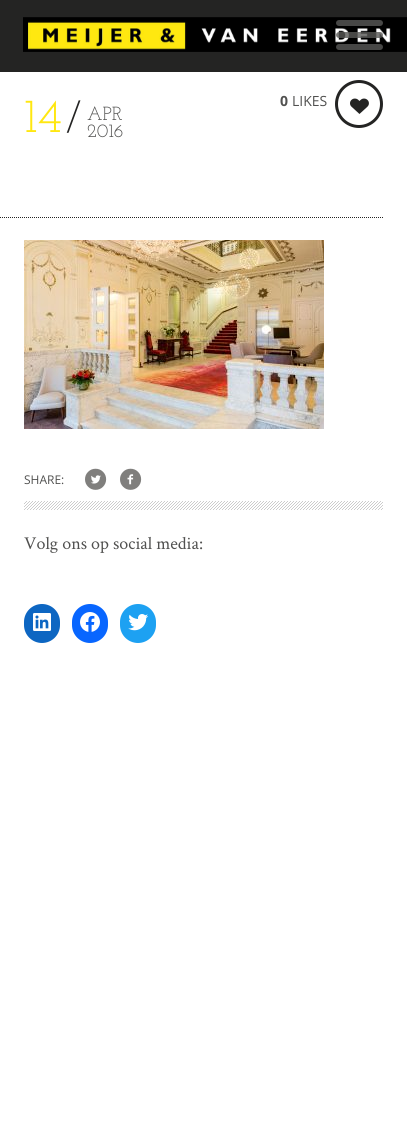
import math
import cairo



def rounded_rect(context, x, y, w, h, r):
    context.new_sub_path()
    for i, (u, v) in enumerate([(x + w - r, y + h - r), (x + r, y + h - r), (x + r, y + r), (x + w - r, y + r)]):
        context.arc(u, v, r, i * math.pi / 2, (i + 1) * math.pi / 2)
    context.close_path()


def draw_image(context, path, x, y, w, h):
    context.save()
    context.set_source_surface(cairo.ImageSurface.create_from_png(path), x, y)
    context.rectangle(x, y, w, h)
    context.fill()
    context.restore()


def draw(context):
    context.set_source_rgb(1, 1, 1)
    context.paint()
    context.set_source_rgb(36 / 255, 36 / 255, 35 / 255)
    context.rectangle(0, 0, 407, 72)
    context.fill()
    draw_image(context, "images/1.png", 23, 17, 384, 35)
    context.set_source_rgba(89 / 255, 89 / 255, 87 / 255, 0.8)
    rounded_rect(context, 336, 32, 47, 6, 3)
    context.fill()
    context.set_source_rgb(71 / 255, 71 / 255, 70 / 255)
    rounded_rect(context, 336, 20, 47, 6, 3)
    context.fill()
    rounded_rect(context, 336, 44, 47, 6, 3)
    context.fill()
    context.new_path()
    context.move_to(-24, 217.5)
    context.line_to(383, 217.5)
    context.set_source_rgb(36 / 255, 36 / 255, 35 / 255)
    context.set_line_width(1)
    context.set_dash([1, 1])
    context.stroke()
    context.arc(359, 104, 22.5, 0, 2 * math.pi)
    context.set_line_width(3)
    context.set_dash([])
    context.stroke()
    draw_image(context, "images/2.png", 350, 98, 19, 16)
    draw_image(context, "images/3.png", 24, 240, 300, 189)
    draw_image(context, "images/4.png", 85, 468, 22, 22)
    draw_image(context, "images/5.png", 120, 468, 22, 22)
    draw_image(context, "images/6.png", 24, 501, 359, 9)
    context.set_source_rgb(13 / 255, 102 / 255, 194 / 255)
    rounded_rect(context, 24, 604, 36, 39, 18)
    context.fill()
    draw_image(context, "images/7.png", 33, 613, 18, 18)
    context.set_source_rgb(8 / 255, 102 / 255, 1)
    rounded_rect(context, 72, 604, 36, 39, 18)
    context.fill()
    draw_image(context, "images/8.png", 80, 612, 20, 20)
    context.set_source_rgb(29 / 255, 161 / 255, 242 / 255)
    rounded_rect(context, 120, 604, 36, 39, 18)
    context.fill()
    draw_image(context, "images/9.png", 128, 614, 20, 17)
    context.select_font_face("Josefin Slab")
    context.set_font_size(48)
    context.set_source_rgb(1, 231 / 255, 17 / 255)
    context.move_to(24, 132)
    context.show_text("14")
    context.set_font_size(43)
    context.set_source_rgb(36 / 255, 36 / 255, 35 / 255)
    context.move_to(66, 132)
    context.show_text("/")
    context.set_font_size(19)
    context.set_source_rgb(81 / 255, 81 / 255, 80 / 255)
    context.move_to(87, 120)
    context.show_text("APR")
    context.move_to(87, 137)
    context.show_text("2016")
    context.select_font_face("Open Sans", cairo.FontSlant.NORMAL, cairo.FontWeight.BOLD)
    context.set_font_size(14)
    context.move_to(280, 106)
    context.show_text("0")
    context.select_font_face("Open Sans")
    context.move_to(292, 106)
    context.show_text("LIKES")
    context.set_font_size(12)
    context.move_to(24, 484)
    context.show_text("SHARE:")
    context.select_font_face("Crimson Text")
    context.set_font_size(18)
    context.move_to(24, 549)
    context.show_text("Volg ons op social media:")


surface = cairo.ImageSurface(cairo.Format.RGB24, 407, 1141)
context = cairo.Context(surface)
options = cairo.FontOptions()
options.set_hint_metrics(cairo.HintMetrics.OFF)
options.set_hint_style(cairo.HintStyle.NONE)
context.set_font_options(options)
context.set_miter_limit(4)
draw(context)
surface.write_to_png("out.png")
